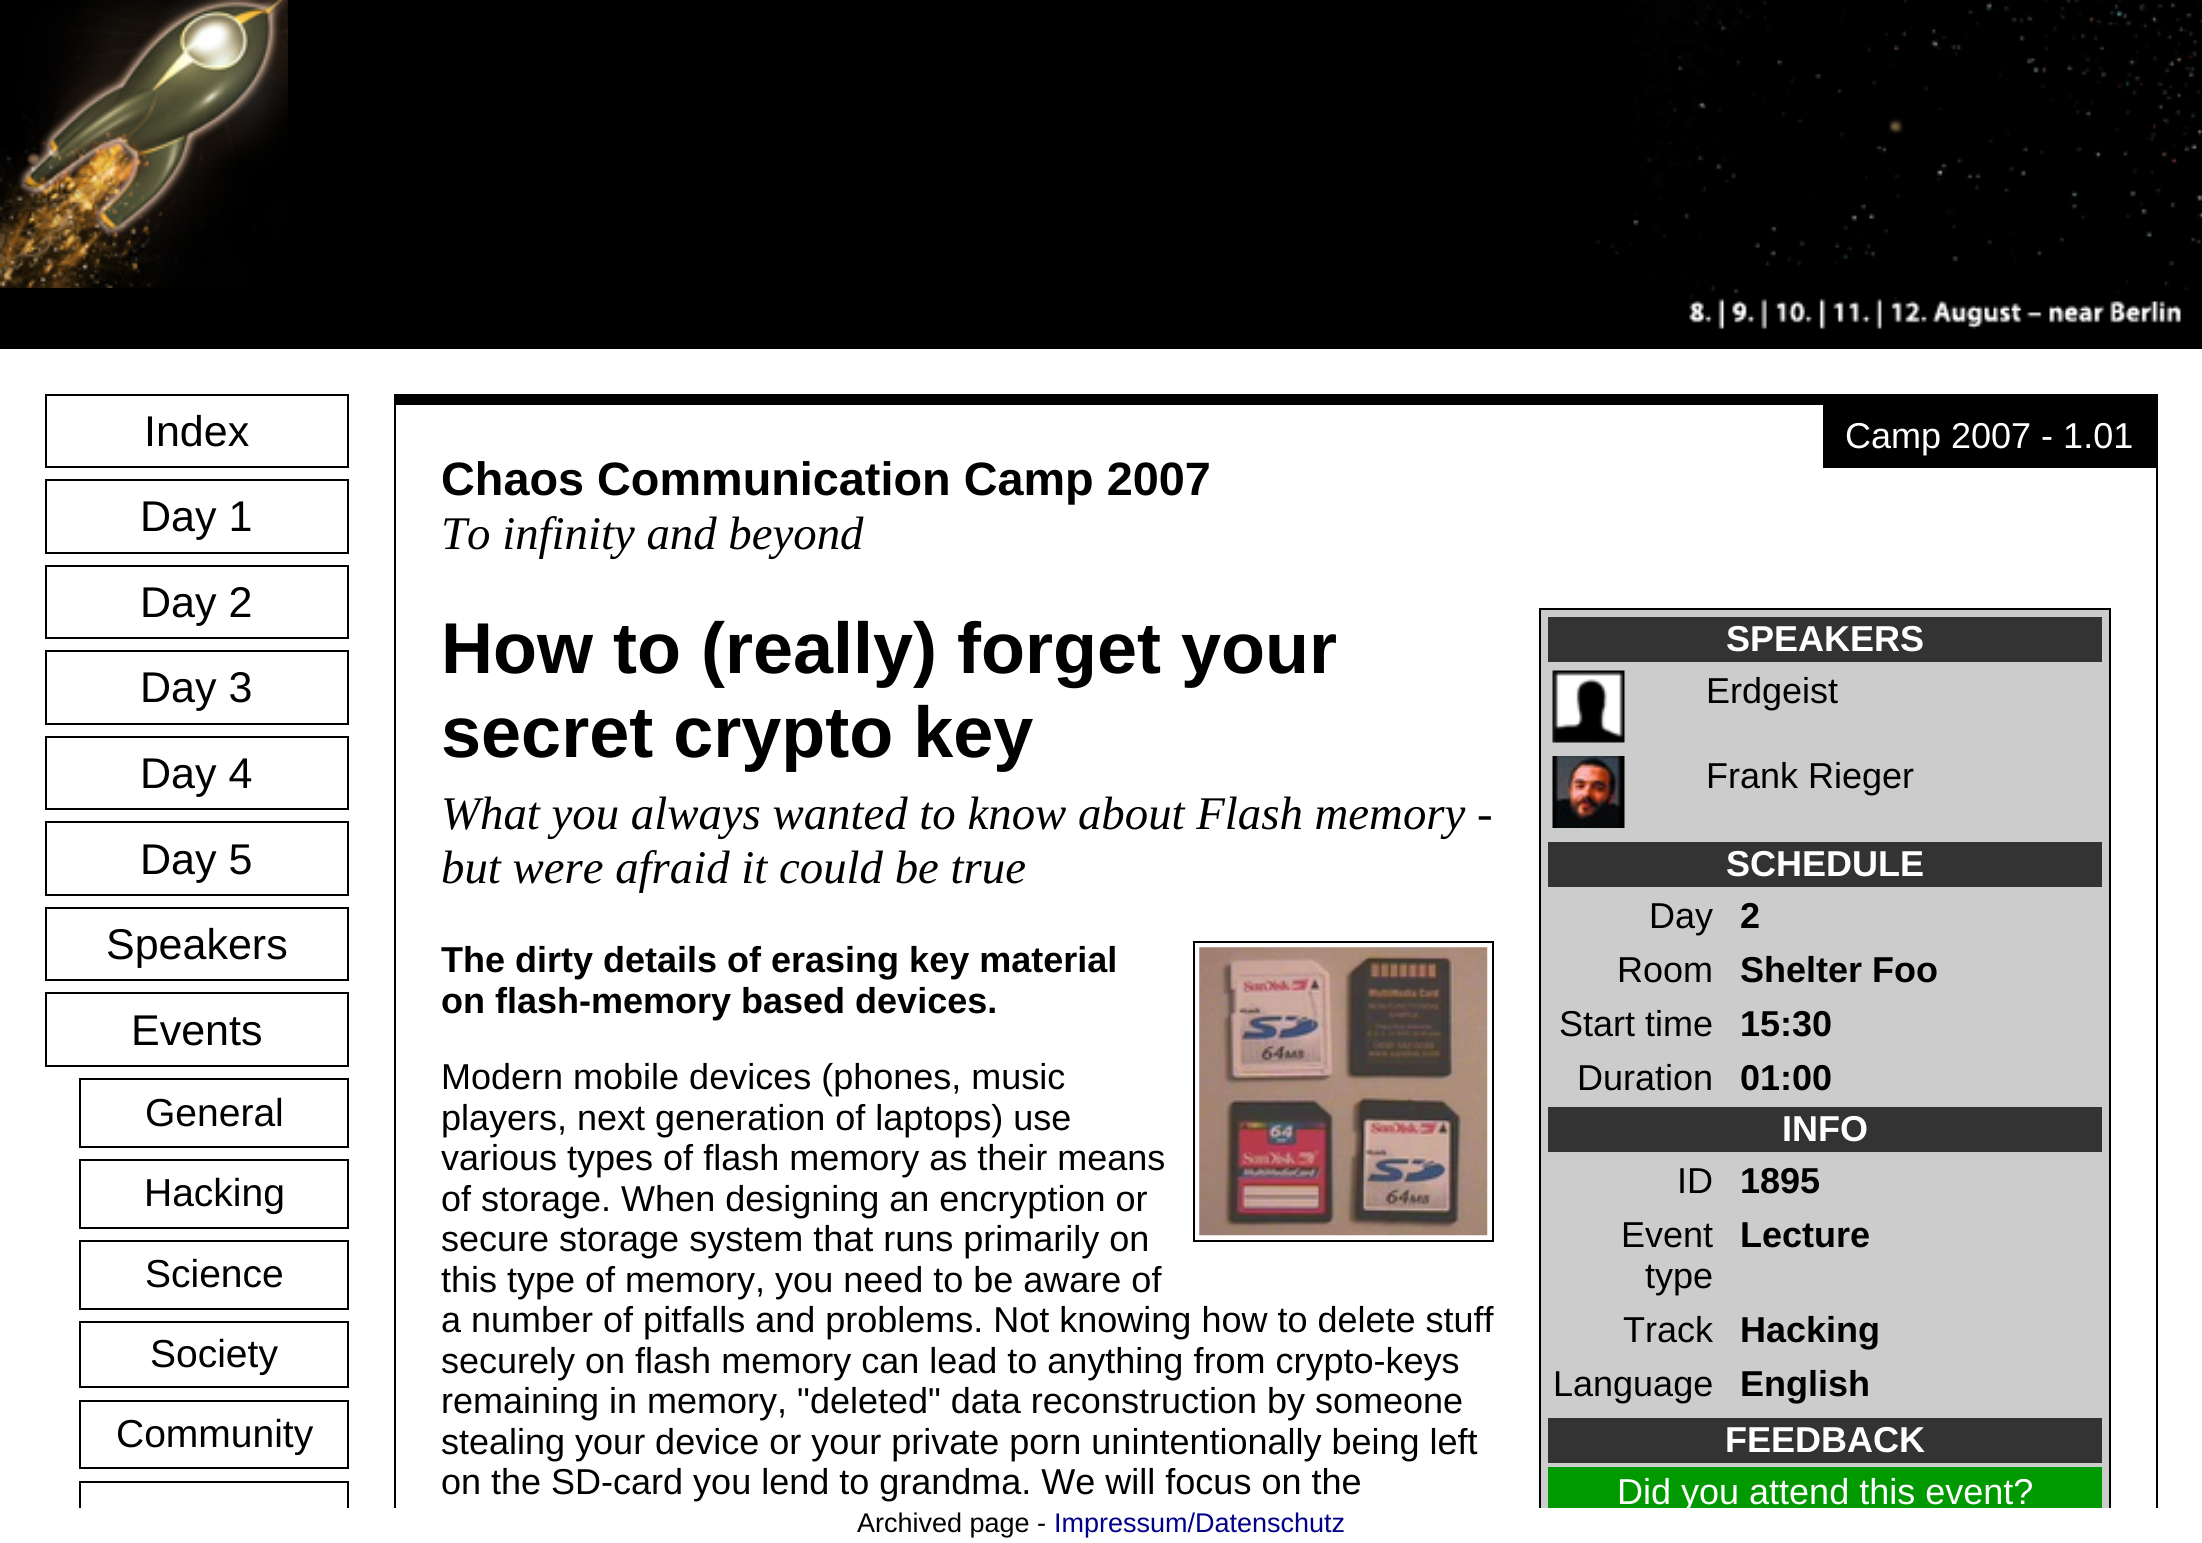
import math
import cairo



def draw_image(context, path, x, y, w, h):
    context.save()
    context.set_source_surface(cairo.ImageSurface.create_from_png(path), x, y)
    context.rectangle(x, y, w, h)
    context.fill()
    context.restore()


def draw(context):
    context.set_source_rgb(1, 1, 1)
    context.paint()
    context.set_source_rgb(0, 0, 0)
    context.rectangle(0, 0, 2202, 349)
    context.fill()
    draw_image(context, "images/1.png", 1595, 0, 607, 330)
    draw_image(context, "images/2.png", 0, 0, 288, 288)
    context.rectangle(46, 395, 302, 72)
    context.stroke()
    context.rectangle(46, 480, 302, 73)
    context.stroke()
    context.rectangle(46, 566, 302, 72)
    context.stroke()
    context.rectangle(46, 651, 302, 73)
    context.stroke()
    context.rectangle(46, 737, 302, 72)
    context.stroke()
    context.rectangle(46, 822, 302, 73)
    context.stroke()
    context.rectangle(46, 908, 302, 72)
    context.stroke()
    context.rectangle(46, 993, 302, 73)
    context.stroke()
    context.rectangle(80, 1079, 268, 68)
    context.stroke()
    context.rectangle(80, 1160, 268, 68)
    context.stroke()
    context.rectangle(80, 1241, 268, 68)
    context.stroke()
    context.rectangle(80, 1322, 268, 65)
    context.stroke()
    context.rectangle(80, 1401, 268, 67)
    context.stroke()
    context.rectangle(80, 1482, 268, 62)
    context.stroke()
    context.rectangle(396, 394, 1760, 11)
    context.fill()
    context.rectangle(2156, 394, 2, 1114)
    context.fill()
    context.rectangle(394, 394, 2, 1114)
    context.fill()
    context.rectangle(1823, 405, 333, 63)
    context.fill()
    context.set_source_rgb(204 / 255, 204 / 255, 204 / 255)
    context.rectangle(1541, 610, 568, 898)
    context.fill()
    context.rectangle(1540, 609, 570, 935)
    context.set_source_rgb(0, 0, 0)
    context.stroke()
    context.set_source_rgb(51 / 255, 51 / 255, 51 / 255)
    context.rectangle(1548, 617, 554, 45)
    context.fill()
    draw_image(context, "images/3.png", 1552, 670, 73, 73)
    draw_image(context, "images/4.png", 1552, 756, 73, 72)
    context.rectangle(1548, 842, 554, 45)
    context.fill()
    context.rectangle(1548, 1107, 554, 45)
    context.fill()
    context.rectangle(1548, 1418, 554, 45)
    context.fill()
    context.set_source_rgb(0, 153 / 255, 0)
    context.rectangle(1548, 1467, 554, 41)
    context.fill()
    context.rectangle(1194, 942, 299, 299)
    context.set_source_rgb(0, 0, 0)
    context.stroke()
    draw_image(context, "images/5.png", 1199, 947, 289, 289)
    context.set_source_rgb(1, 1, 1)
    context.rectangle(79, 1508, 2032, 35)
    context.fill()
    context.select_font_face("Liberation Sans")
    context.set_font_size(43)
    context.set_source_rgb(0, 0, 0)
    context.move_to(144, 446)
    context.show_text("Index")
    context.move_to(140, 531)
    context.show_text("Day 1")
    context.move_to(140, 617)
    context.show_text("Day 2")
    context.move_to(140, 702)
    context.show_text("Day 3")
    context.move_to(140, 788)
    context.show_text("Day 4")
    context.move_to(140, 874)
    context.show_text("Day 5")
    context.move_to(106, 959)
    context.show_text("Speakers")
    context.move_to(131, 1045)
    context.show_text("Events")
    context.set_font_size(39)
    context.move_to(145, 1126)
    context.show_text("General")
    context.move_to(144, 1206)
    context.show_text("Hacking")
    context.move_to(145, 1287)
    context.show_text("Science")
    context.move_to(150, 1367)
    context.show_text("Society")
    context.move_to(116, 1447)
    context.show_text("Community")
    context.set_font_size(36)
    context.set_source_rgb(1, 1, 1)
    context.move_to(1845, 448)
    context.show_text("Camp 2007 - 1.01")
    context.select_font_face("Liberation Sans", cairo.FontSlant.NORMAL, cairo.FontWeight.BOLD)
    context.set_font_size(46.8)
    context.set_source_rgb(0, 0, 0)
    context.move_to(441, 495)
    context.show_text("Chaos Communication Camp 2007")
    context.select_font_face("Liberation Serif", cairo.FontSlant.ITALIC)
    context.move_to(441, 549)
    context.show_text("To infinity and beyond")
    context.select_font_face("Liberation Sans", cairo.FontSlant.NORMAL, cairo.FontWeight.BOLD)
    context.set_font_size(72)
    context.move_to(441, 673)
    context.show_text("How to (really) forget your")
    context.move_to(441, 757)
    context.show_text("secret crypto key")
    context.set_font_size(36)
    context.set_source_rgb(1, 1, 1)
    context.move_to(1726, 651)
    context.show_text("SPEAKERS")
    context.select_font_face("Liberation Sans")
    context.set_source_rgb(0, 0, 0)
    context.move_to(1706, 703)
    context.show_text("Erdgeist")
    context.move_to(1706, 788)
    context.show_text("Frank Rieger")
    context.select_font_face("Liberation Sans", cairo.FontSlant.NORMAL, cairo.FontWeight.BOLD)
    context.set_source_rgb(1, 1, 1)
    context.move_to(1726, 876)
    context.show_text("SCHEDULE")
    context.select_font_face("Liberation Sans")
    context.set_source_rgb(0, 0, 0)
    context.move_to(1649, 928)
    context.show_text("Day")
    context.select_font_face("Liberation Sans", cairo.FontSlant.NORMAL, cairo.FontWeight.BOLD)
    context.move_to(1740, 928)
    context.show_text("2")
    context.select_font_face("Liberation Sans")
    context.move_to(1617, 982)
    context.show_text("Room")
    context.select_font_face("Liberation Sans", cairo.FontSlant.NORMAL, cairo.FontWeight.BOLD)
    context.move_to(1740, 982)
    context.show_text("Shelter Foo")
    context.select_font_face("Liberation Sans")
    context.move_to(1559, 1036)
    context.show_text("Start time")
    context.select_font_face("Liberation Sans", cairo.FontSlant.NORMAL, cairo.FontWeight.BOLD)
    context.move_to(1740, 1036)
    context.show_text("15:30")
    context.select_font_face("Liberation Sans")
    context.move_to(1577, 1090)
    context.show_text("Duration")
    context.select_font_face("Liberation Sans", cairo.FontSlant.NORMAL, cairo.FontWeight.BOLD)
    context.move_to(1740, 1090)
    context.show_text("01:00")
    context.set_source_rgb(1, 1, 1)
    context.move_to(1782, 1141)
    context.show_text("INFO")
    context.select_font_face("Liberation Sans")
    context.set_source_rgb(0, 0, 0)
    context.move_to(1677, 1193)
    context.show_text("ID")
    context.select_font_face("Liberation Sans", cairo.FontSlant.NORMAL, cairo.FontWeight.BOLD)
    context.move_to(1740, 1193)
    context.show_text("1895")
    context.select_font_face("Liberation Sans")
    context.move_to(1621, 1247)
    context.show_text("Event")
    context.move_to(1645, 1288)
    context.show_text("type")
    context.select_font_face("Liberation Sans", cairo.FontSlant.NORMAL, cairo.FontWeight.BOLD)
    context.move_to(1740, 1247)
    context.show_text("Lecture")
    context.select_font_face("Liberation Sans")
    context.move_to(1623, 1342)
    context.show_text("Track")
    context.select_font_face("Liberation Sans", cairo.FontSlant.NORMAL, cairo.FontWeight.BOLD)
    context.move_to(1740, 1342)
    context.show_text("Hacking")
    context.select_font_face("Liberation Sans")
    context.move_to(1553, 1396)
    context.show_text("Language")
    context.select_font_face("Liberation Sans", cairo.FontSlant.NORMAL, cairo.FontWeight.BOLD)
    context.move_to(1740, 1396)
    context.show_text("English")
    context.set_source_rgb(1, 1, 1)
    context.move_to(1725, 1452)
    context.show_text("FEEDBACK")
    context.select_font_face("Liberation Sans")
    context.move_to(1617, 1504)
    context.show_text("Did you attend this event?")
    context.select_font_face("Liberation Serif", cairo.FontSlant.ITALIC)
    context.set_font_size(46.8)
    context.set_source_rgb(0, 0, 0)
    context.move_to(441, 829)
    context.show_text("What you always wanted to know about Flash memory -")
    context.move_to(441, 883)
    context.show_text("but were afraid it could be true")
    context.select_font_face("Liberation Sans", cairo.FontSlant.NORMAL, cairo.FontWeight.BOLD)
    context.set_font_size(36)
    context.move_to(441, 972)
    context.show_text("The dirty details of erasing key material")
    context.move_to(441, 1013)
    context.show_text("on flash-memory based devices.")
    context.select_font_face("Liberation Sans")
    context.move_to(441, 1089)
    context.show_text("Modern mobile devices (phones, music")
    context.move_to(441, 1130)
    context.show_text("players, next generation of laptops) use")
    context.move_to(441, 1170)
    context.show_text("various types of flash memory as their means")
    context.move_to(441, 1211)
    context.show_text("of storage. When designing an encryption or")
    context.move_to(441, 1251)
    context.show_text("secure storage system that runs primarily on")
    context.move_to(441, 1292)
    context.show_text("this type of memory, you need to be aware of")
    context.move_to(441, 1332)
    context.show_text("a number of pitfalls and problems. Not knowing how to delete stuff")
    context.move_to(441, 1373)
    context.show_text("securely on flash memory can lead to anything from crypto-keys")
    context.move_to(441, 1413)
    context.show_text("remaining in memory, \"deleted\" data reconstruction by someone")
    context.move_to(441, 1454)
    context.show_text("stealing your device or your private porn unintentionally being left")
    context.move_to(441, 1494)
    context.show_text("on the SD-card you lend to grandma. We will focus on the")
    context.set_font_size(27)
    context.move_to(857, 1532)
    context.show_text("Archived page -")
    context.set_source_rgb(0, 0, 139 / 255)
    context.move_to(1054, 1532)
    context.show_text("Impressum/Datenschutz")


surface = cairo.ImageSurface(cairo.Format.RGB24, 2202, 1543)
context = cairo.Context(surface)
options = cairo.FontOptions()
options.set_hint_metrics(cairo.HintMetrics.OFF)
options.set_hint_style(cairo.HintStyle.NONE)
context.set_font_options(options)
context.set_miter_limit(4)
draw(context)
surface.write_to_png("out.png")
